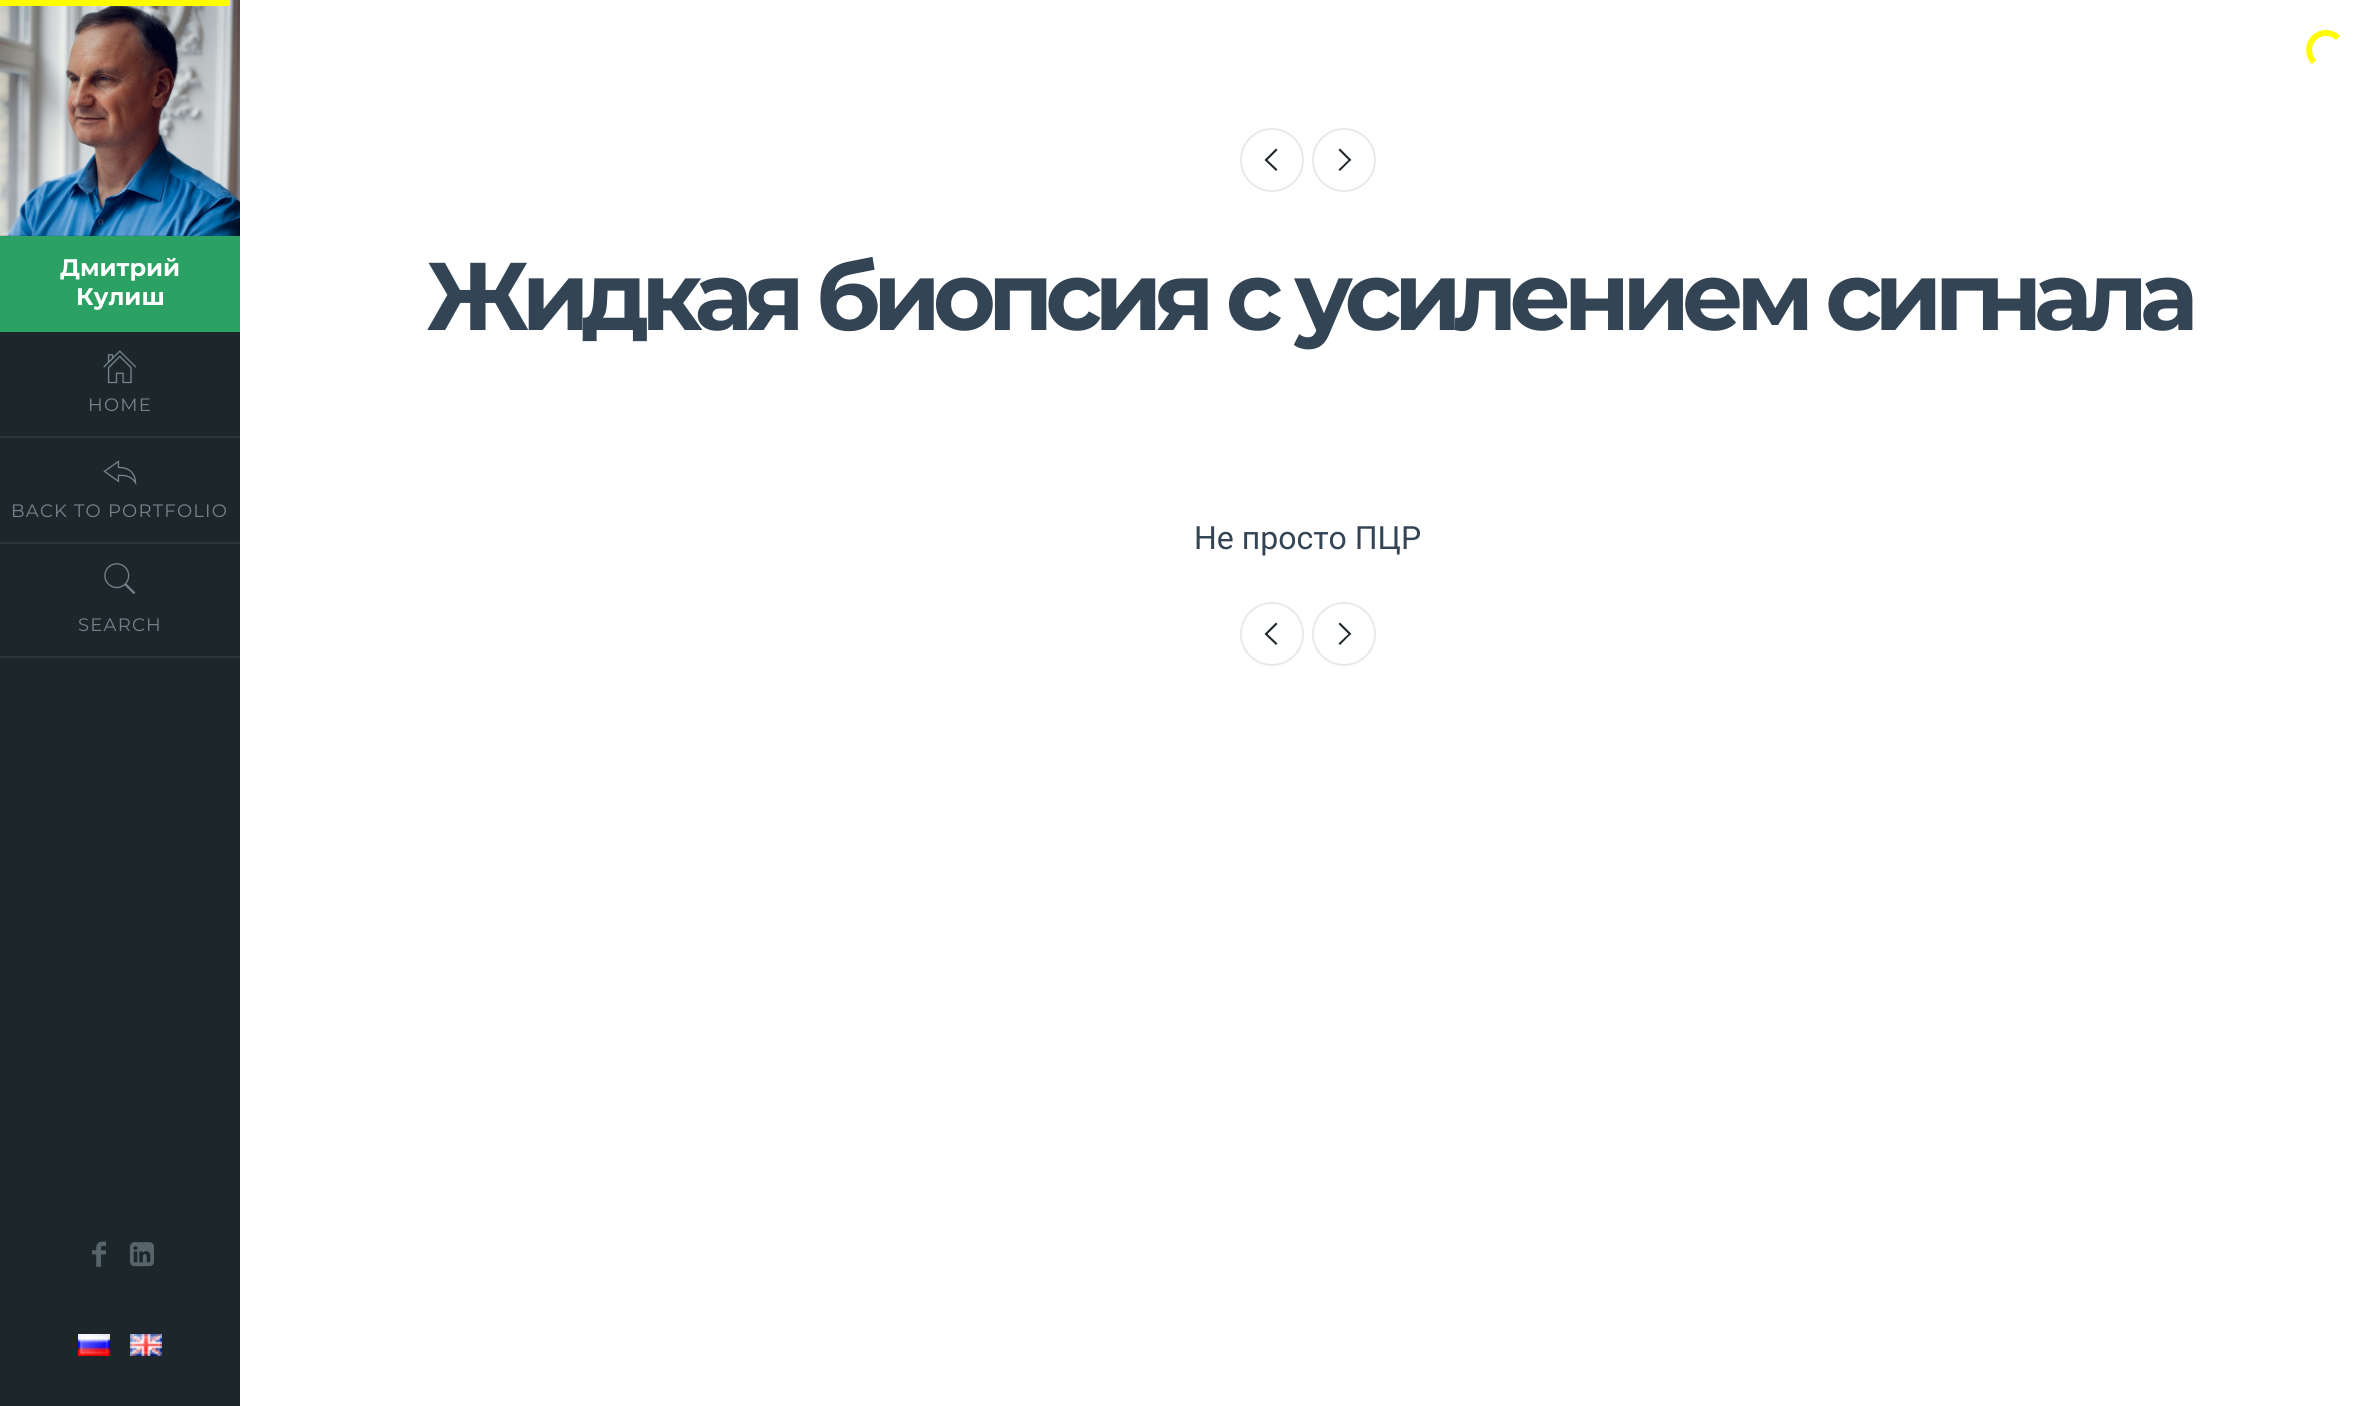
import math
import cairo



def draw_spaced(context, x, y, s, letter, word):
    context.move_to(x, y)
    for ch in s:
        context.show_text(ch)
        context.rel_move_to(letter + word * (ch == ' '), 0)


def draw_image(context, path, x, y, w, h):
    context.save()
    context.set_source_surface(cairo.ImageSurface.create_from_png(path), x, y)
    context.rectangle(x, y, w, h)
    context.fill()
    context.restore()


def draw(context):
    context.set_source_rgb(1, 1, 1)
    context.paint()
    context.set_source_rgb(28 / 255, 38 / 255, 43 / 255)
    context.rectangle(0, 235, 240, 1171)
    context.fill()
    draw_image(context, "images/1.png", 0, 0, 240, 236)
    context.set_source_rgb(1, 252 / 255, 0)
    context.rectangle(0, 0, 230, 6)
    context.fill()
    context.new_path()
    context.move_to(2314, 62)
    context.curve_to(2311.5, 59.5, 2310, 56.5, 2309.5, 53.5)
    context.curve_to(2306, 37, 2326, 26, 2338, 38)
    context.set_line_width(6)
    context.stroke()
    context.set_source_rgb(43 / 255, 161 / 255, 99 / 255)
    context.rectangle(0, 236, 240, 96)
    context.fill()
    context.set_source_rgb(42 / 255, 53 / 255, 58 / 255)
    context.rectangle(0, 436, 240, 2)
    context.fill()
    draw_image(context, "images/2.png", 103, 350, 34, 34)
    context.rectangle(0, 542, 240, 2)
    context.fill()
    draw_image(context, "images/3.png", 103, 460, 34, 25)
    context.rectangle(0, 656, 240, 2)
    context.fill()
    draw_image(context, "images/4.png", 104, 563, 32, 31)
    draw_image(context, "images/5.png", 92, 1241, 14, 26)
    draw_image(context, "images/6.png", 130, 1242, 24, 25)
    draw_image(context, "images/7.png", 78, 1334, 32, 22)
    draw_image(context, "images/8.png", 130, 1334, 32, 22)
    context.arc(1272, 160, 31, 0, 2 * math.pi)
    context.set_source_rgb(232 / 255, 233 / 255, 234 / 255)
    context.set_line_width(2)
    context.stroke()
    context.set_source_rgb(28 / 255, 38 / 255, 43 / 255)
    context.new_path()
    context.move_to(1266, 158.5)
    context.line_to(1264.5, 160)
    context.line_to(1276, 171)
    context.line_to(1277.5, 169.5)
    context.line_to(1267.5, 160)
    context.line_to(1277.5, 150)
    context.line_to(1276, 148.5)
    context.close_path()
    context.fill()
    context.arc(1344, 160, 31, 0, 2 * math.pi)
    context.set_source_rgb(232 / 255, 233 / 255, 234 / 255)
    context.stroke()
    context.set_source_rgb(28 / 255, 38 / 255, 43 / 255)
    context.new_path()
    context.move_to(1350, 161)
    context.line_to(1351.5, 160)
    context.line_to(1340, 148.5)
    context.line_to(1338.5, 150)
    context.line_to(1348.5, 160)
    context.line_to(1338.5, 169.5)
    context.line_to(1340, 171)
    context.close_path()
    context.fill()
    context.arc(1272, 634, 31, 0, 2 * math.pi)
    context.set_source_rgb(232 / 255, 233 / 255, 234 / 255)
    context.stroke()
    context.set_source_rgb(28 / 255, 38 / 255, 43 / 255)
    context.new_path()
    context.move_to(1266, 632.5)
    context.line_to(1264.5, 634)
    context.line_to(1276, 645)
    context.line_to(1277.5, 643.5)
    context.line_to(1267.5, 634)
    context.line_to(1277.5, 624)
    context.line_to(1276, 622.5)
    context.close_path()
    context.fill()
    context.arc(1344, 634, 31, 0, 2 * math.pi)
    context.set_source_rgb(232 / 255, 233 / 255, 234 / 255)
    context.stroke()
    context.set_source_rgb(28 / 255, 38 / 255, 43 / 255)
    context.new_path()
    context.move_to(1350, 635)
    context.line_to(1351.5, 634)
    context.line_to(1340, 622.5)
    context.line_to(1338.5, 624)
    context.line_to(1348.5, 634)
    context.line_to(1338.5, 643.5)
    context.line_to(1340, 645)
    context.close_path()
    context.fill()
    context.select_font_face("Montserrat", cairo.FontSlant.NORMAL, cairo.FontWeight.BOLD)
    context.set_font_size(24)
    context.set_source_rgb(1, 1, 1)
    context.move_to(60, 276)
    context.show_text("Дмитрий")
    context.move_to(76, 305)
    context.show_text("Кулиш")
    context.select_font_face("Montserrat")
    context.set_font_size(18)
    context.set_source_rgb(117 / 255, 132 / 255, 138 / 255)
    draw_spaced(context, 88, 411, "HOME", 1.25, 0)
    draw_spaced(context, 11, 517, "BACK TO PORTFOLIO", 1.25, 0)
    draw_spaced(context, 78, 631, "SEARCH", 1.25, 0)
    context.select_font_face("Montserrat", cairo.FontSlant.NORMAL, cairo.FontWeight.BOLD)
    context.set_font_size(96)
    context.set_source_rgb(51 / 255, 68 / 255, 85 / 255)
    draw_spaced(context, 426, 330, "Жидкая биопсия с усилением сигнала", -8, 0)
    context.select_font_face("Roboto")
    context.set_font_size(32)
    context.move_to(1194, 549)
    context.show_text("Не просто ПЦР")


surface = cairo.ImageSurface(cairo.Format.RGB24, 2375, 1406)
context = cairo.Context(surface)
options = cairo.FontOptions()
options.set_hint_metrics(cairo.HintMetrics.OFF)
options.set_hint_style(cairo.HintStyle.NONE)
context.set_font_options(options)
context.set_miter_limit(4)
draw(context)
surface.write_to_png("out.png")
